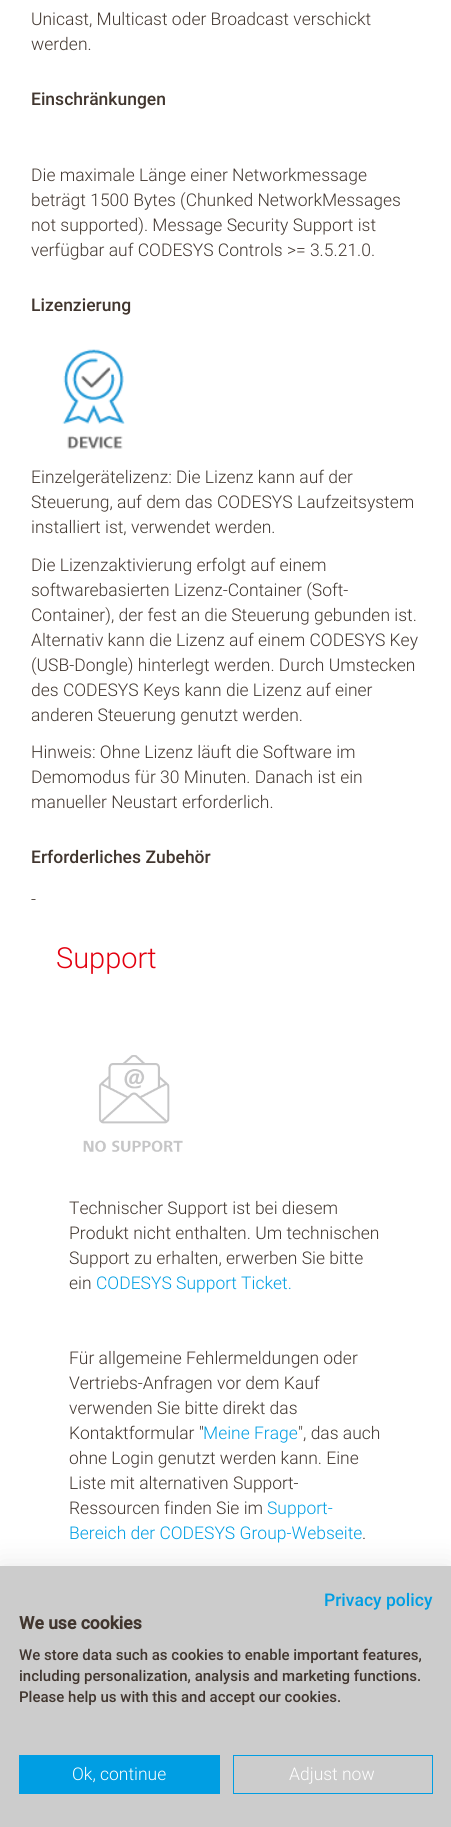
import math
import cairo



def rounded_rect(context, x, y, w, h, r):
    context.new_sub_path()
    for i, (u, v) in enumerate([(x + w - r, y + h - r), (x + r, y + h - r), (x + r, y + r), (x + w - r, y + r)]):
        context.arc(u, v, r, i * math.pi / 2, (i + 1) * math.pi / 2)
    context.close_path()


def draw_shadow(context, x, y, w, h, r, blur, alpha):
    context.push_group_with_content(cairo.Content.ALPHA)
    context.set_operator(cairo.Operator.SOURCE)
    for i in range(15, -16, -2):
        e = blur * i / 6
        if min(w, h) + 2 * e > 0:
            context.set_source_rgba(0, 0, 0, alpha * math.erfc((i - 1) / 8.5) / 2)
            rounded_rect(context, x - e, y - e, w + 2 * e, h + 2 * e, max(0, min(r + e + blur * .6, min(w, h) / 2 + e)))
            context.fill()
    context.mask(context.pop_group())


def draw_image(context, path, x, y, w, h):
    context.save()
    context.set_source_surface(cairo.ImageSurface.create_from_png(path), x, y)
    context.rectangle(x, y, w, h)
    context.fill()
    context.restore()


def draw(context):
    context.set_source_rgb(1, 1, 1)
    context.paint()
    draw_image(context, "images/1.png", 62, 349, 63, 100)
    draw_image(context, "images/2.png", 83, 1055, 100, 97)
    context.set_source_rgb(0, 0, 0)
    draw_shadow(context, 0, 1566, 451, 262, 0, 15, 0.1)
    context.set_source_rgb(204 / 255, 204 / 255, 204 / 255)
    context.rectangle(0, 1566, 451, 261)
    context.fill()
    context.set_source_rgb(0, 158 / 255, 227 / 255)
    context.rectangle(19, 1755, 201, 39)
    context.fill()
    context.rectangle(233.5, 1755.5, 199, 38)
    context.set_line_width(1)
    context.stroke()
    context.select_font_face("Roboto Light")
    context.set_font_size(17.5)
    context.set_source_rgb(65 / 255, 54 / 255, 47 / 255)
    context.move_to(31, 25)
    context.show_text("Unicast, Multicast oder Broadcast verschickt")
    context.move_to(31, 50)
    context.show_text("werden.")
    context.select_font_face("Roboto Medium")
    context.move_to(31, 105)
    context.show_text("Einschränkungen")
    context.select_font_face("Roboto Light")
    context.move_to(31, 181)
    context.show_text("Die maximale Länge einer Networkmessage")
    context.move_to(31, 206)
    context.show_text("beträgt 1500 Bytes (Chunked NetworkMessages")
    context.move_to(31, 231)
    context.show_text("not supported). Message Security Support ist")
    context.move_to(31, 256)
    context.show_text("verfügbar auf CODESYS Controls >= 3.5.21.0.")
    context.select_font_face("Roboto Medium")
    context.move_to(31, 311)
    context.show_text("Lizenzierung")
    context.select_font_face("Roboto Light")
    context.move_to(31, 483)
    context.show_text("Einzelgerätelizenz: Die Lizenz kann auf der")
    context.move_to(31, 508)
    context.show_text("Steuerung, auf dem das CODESYS Laufzeitsystem")
    context.move_to(31, 533)
    context.show_text("installiert ist, verwendet werden.")
    context.move_to(31, 571)
    context.show_text("Die Lizenzaktivierung erfolgt auf einem")
    context.move_to(31, 596)
    context.show_text("softwarebasierten Lizenz-Container (Soft-")
    context.move_to(31, 621)
    context.show_text("Container), der fest an die Steuerung gebunden ist.")
    context.move_to(31, 646)
    context.show_text("Alternativ kann die Lizenz auf einem CODESYS Key")
    context.move_to(31, 671)
    context.show_text("(USB-Dongle) hinterlegt werden. Durch Umstecken")
    context.move_to(31, 696)
    context.show_text("des CODESYS Keys kann die Lizenz auf einer")
    context.move_to(31, 721)
    context.show_text("anderen Steuerung genutzt werden.")
    context.move_to(31, 758)
    context.show_text("Hinweis: Ohne Lizenz läuft die Software im")
    context.move_to(31, 783)
    context.show_text("Demomodus für 30 Minuten. Danach ist ein")
    context.move_to(31, 808)
    context.show_text("manueller Neustart erforderlich.")
    context.select_font_face("Roboto Medium")
    context.move_to(31, 863)
    context.show_text("Erforderliches Zubehör")
    context.select_font_face("Roboto Light")
    context.move_to(31, 905)
    context.show_text("-")
    context.set_font_size(29)
    context.set_source_rgb(227 / 255, 0, 15 / 255)
    context.move_to(56, 968)
    context.show_text("Support")
    context.set_font_size(17.5)
    context.set_source_rgb(65 / 255, 54 / 255, 47 / 255)
    context.move_to(69, 1214)
    context.show_text("Technischer Support ist bei diesem")
    context.move_to(69, 1239)
    context.show_text("Produkt nicht enthalten. Um technischen")
    context.move_to(69, 1264)
    context.show_text("Support zu erhalten, erwerben Sie bitte")
    context.move_to(69, 1289)
    context.show_text("ein")
    context.set_source_rgb(0, 158 / 255, 227 / 255)
    context.move_to(96, 1289)
    context.show_text("CODESYS Support Ticket.")
    context.set_source_rgb(65 / 255, 54 / 255, 47 / 255)
    context.move_to(69, 1364)
    context.show_text("Für allgemeine Fehlermeldungen oder")
    context.move_to(69, 1389)
    context.show_text("Vertriebs-Anfragen vor dem Kauf")
    context.move_to(69, 1414)
    context.show_text("verwenden Sie bitte direkt das")
    context.move_to(69, 1439)
    context.show_text("Kontaktformular \"")
    context.set_source_rgb(0, 158 / 255, 227 / 255)
    context.move_to(203, 1439)
    context.show_text("Meine Frage")
    context.set_source_rgb(65 / 255, 54 / 255, 47 / 255)
    context.move_to(298, 1439)
    context.show_text("\", das auch")
    context.move_to(69, 1464)
    context.show_text("ohne Login genutzt werden kann. Eine")
    context.move_to(69, 1489)
    context.show_text("Liste mit alternativen Support-")
    context.move_to(69, 1514)
    context.show_text("Ressourcen finden Sie im")
    context.set_source_rgb(0, 158 / 255, 227 / 255)
    context.move_to(267, 1514)
    context.show_text("Support-")
    context.move_to(69, 1539)
    context.show_text("Bereich der CODESYS Group-Webseite")
    context.set_source_rgb(65 / 255, 54 / 255, 47 / 255)
    context.move_to(362, 1539)
    context.show_text(".")
    context.select_font_face("Roboto Medium")
    context.set_source_rgb(0, 158 / 255, 227 / 255)
    context.move_to(324, 1606)
    context.show_text("Privacy policy")
    context.select_font_face("Roboto", cairo.FontSlant.NORMAL, cairo.FontWeight.BOLD)
    context.set_source_rgb(65 / 255, 54 / 255, 47 / 255)
    context.move_to(19, 1629)
    context.show_text("We use cookies")
    context.select_font_face("Roboto Medium")
    context.set_font_size(15)
    context.move_to(19, 1660)
    context.show_text("We store data such as cookies to enable important features,")
    context.move_to(19, 1681)
    context.show_text("including personalization, analysis and marketing functions.")
    context.move_to(19, 1702)
    context.show_text("Please help us with this and accept our cookies.")
    context.select_font_face("Roboto Light")
    context.set_font_size(17.5)
    context.set_source_rgb(1, 1, 1)
    context.move_to(72, 1780)
    context.show_text("Ok, continue")
    context.move_to(289, 1780)
    context.show_text("Adjust now")


surface = cairo.ImageSurface(cairo.Format.RGB24, 451, 1827)
context = cairo.Context(surface)
options = cairo.FontOptions()
options.set_hint_metrics(cairo.HintMetrics.OFF)
options.set_hint_style(cairo.HintStyle.NONE)
context.set_font_options(options)
context.set_miter_limit(4)
draw(context)
surface.write_to_png("out.png")
